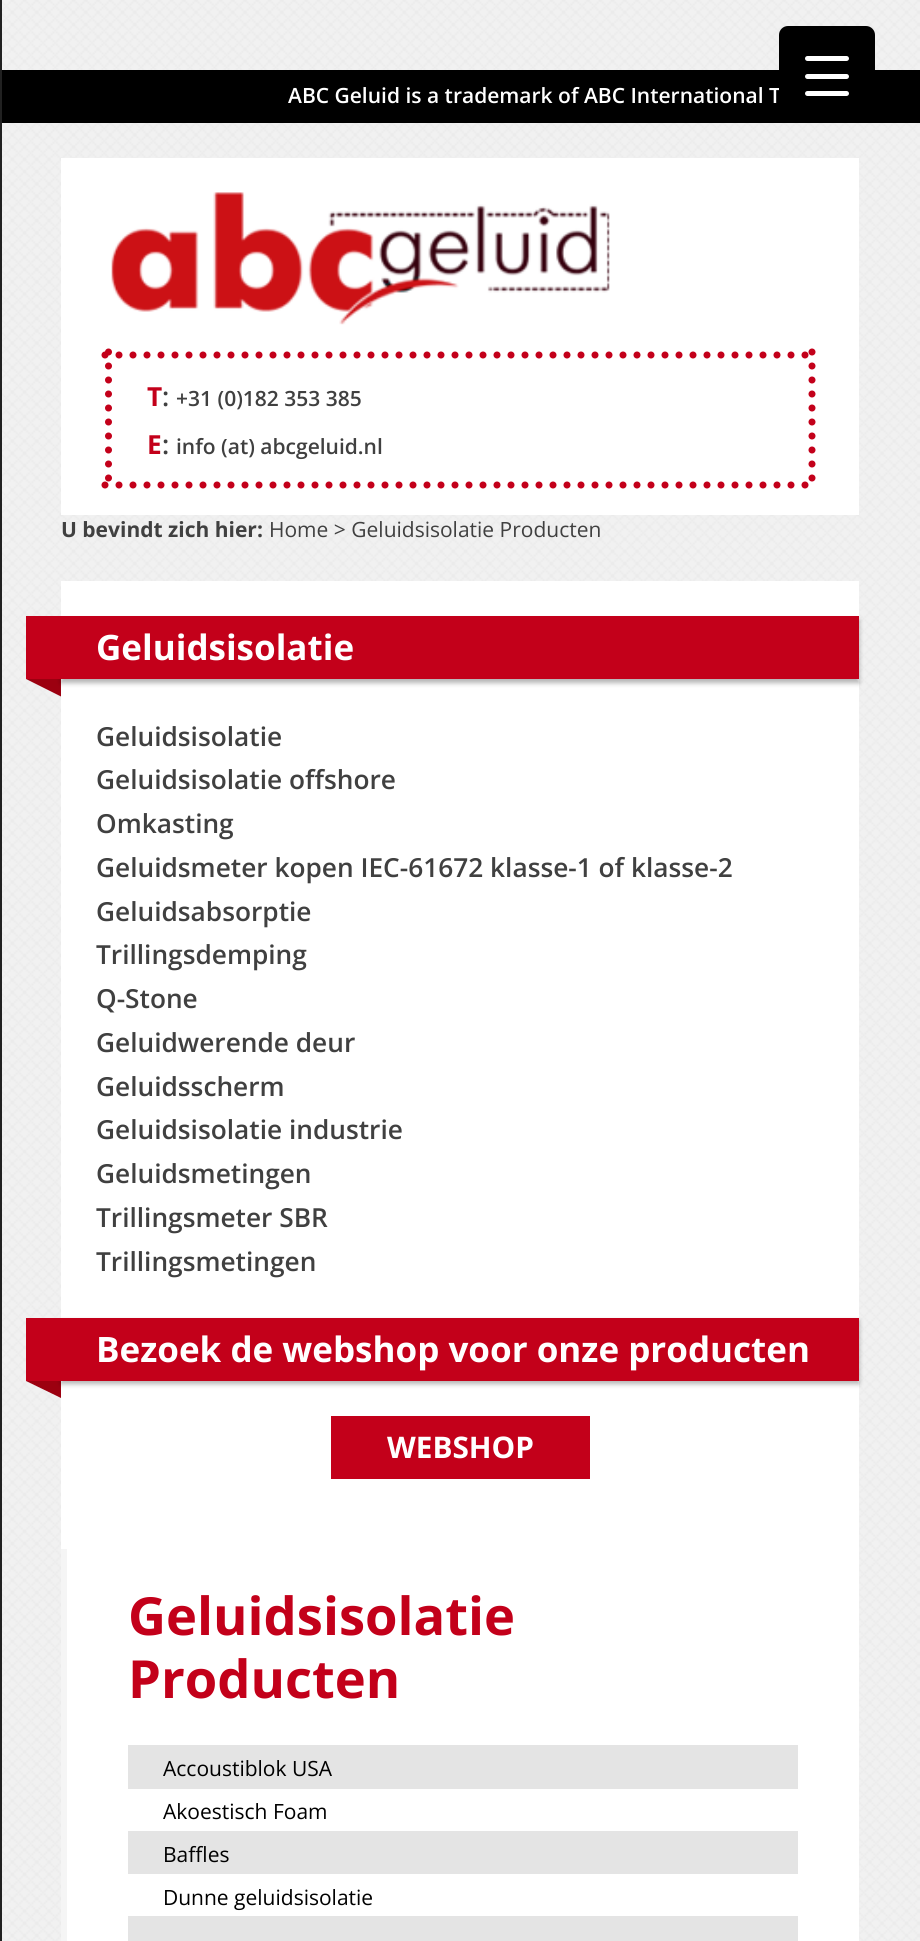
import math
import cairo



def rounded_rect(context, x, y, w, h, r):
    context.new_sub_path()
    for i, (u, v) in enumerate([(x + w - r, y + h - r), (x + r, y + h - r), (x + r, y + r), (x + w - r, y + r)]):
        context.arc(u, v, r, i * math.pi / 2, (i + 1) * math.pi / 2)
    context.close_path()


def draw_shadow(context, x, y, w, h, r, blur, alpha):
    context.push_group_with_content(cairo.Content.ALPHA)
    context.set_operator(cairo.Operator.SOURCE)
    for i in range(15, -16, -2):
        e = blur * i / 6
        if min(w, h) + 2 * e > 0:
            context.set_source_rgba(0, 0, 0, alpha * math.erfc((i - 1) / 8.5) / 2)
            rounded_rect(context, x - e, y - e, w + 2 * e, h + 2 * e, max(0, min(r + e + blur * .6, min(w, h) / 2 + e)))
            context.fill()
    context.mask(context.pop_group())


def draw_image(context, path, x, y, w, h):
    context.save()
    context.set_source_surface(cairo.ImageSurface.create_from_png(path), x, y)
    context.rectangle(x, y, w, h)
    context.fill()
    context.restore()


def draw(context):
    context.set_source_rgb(1, 1, 1)
    context.paint()
    draw_image(context, "images/1.png", 2, 0, 918, 1941)
    context.set_source_rgb(33 / 255, 33 / 255, 33 / 255)
    context.rectangle(0, 0, 2, 1941)
    context.fill()
    context.set_source_rgb(0, 0, 0)
    context.rectangle(2, 70, 918, 53)
    context.fill()
    context.set_source_rgb(1, 1, 1)
    context.rectangle(61, 158, 798, 357)
    context.fill()
    draw_image(context, "images/2.png", 111, 192, 499, 133)
    context.new_path()
    context.move_to(105, 355)
    context.line_to(815.5, 355)
    context.set_source_rgb(195 / 255, 0, 26 / 255)
    context.set_line_width(7)
    context.set_line_cap(cairo.LineCap.ROUND)
    context.set_dash([0, 14])
    context.stroke()
    context.new_path()
    context.move_to(812, 352)
    context.line_to(812, 488)
    context.stroke()
    context.new_path()
    context.move_to(105, 485)
    context.line_to(815.5, 485)
    context.stroke()
    context.new_path()
    context.move_to(108.5, 352)
    context.line_to(108.5, 488)
    context.stroke()
    context.set_source_rgb(1, 1, 1)
    context.rectangle(61, 581, 798, 1360)
    context.fill()
    context.set_source_rgb(195 / 255, 0, 26 / 255)
    context.rectangle(61, 616, 798, 63)
    context.fill()
    context.set_source_rgb(156 / 255, 0, 16 / 255)
    context.new_path()
    context.move_to(61, 679)
    context.line_to(61, 696.5)
    context.line_to(26, 679)
    context.close_path()
    context.fill()
    context.save()
    context.set_fill_rule(cairo.FillRule.EVEN_ODD)
    context.new_path()
    context.move_to(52, 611)
    context.line_to(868, 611)
    context.line_to(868, 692)
    context.line_to(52, 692)
    context.close_path()
    context.move_to(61, 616)
    context.line_to(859, 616)
    context.line_to(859, 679)
    context.line_to(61, 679)
    context.close_path()
    context.clip()
    context.set_source_rgb(0, 0, 0)
    draw_shadow(context, 61, 620, 798, 63, 0, 2.5, 0.3)
    context.restore()
    context.set_source_rgb(195 / 255, 0, 26 / 255)
    context.rectangle(26, 616, 35, 63)
    context.fill()
    context.rectangle(61, 1318, 798, 63)
    context.fill()
    context.set_source_rgb(156 / 255, 0, 16 / 255)
    context.new_path()
    context.move_to(61, 1381)
    context.line_to(61, 1398)
    context.line_to(26, 1381)
    context.close_path()
    context.fill()
    context.save()
    context.set_fill_rule(cairo.FillRule.EVEN_ODD)
    context.new_path()
    context.move_to(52, 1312)
    context.line_to(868, 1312)
    context.line_to(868, 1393)
    context.line_to(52, 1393)
    context.close_path()
    context.move_to(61, 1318)
    context.line_to(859, 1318)
    context.line_to(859, 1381)
    context.line_to(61, 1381)
    context.close_path()
    context.clip()
    context.set_source_rgb(0, 0, 0)
    draw_shadow(context, 61, 1321, 798, 63, 0, 2.5, 0.3)
    context.restore()
    context.set_source_rgb(195 / 255, 0, 26 / 255)
    context.rectangle(26, 1318, 35, 63)
    context.fill()
    context.rectangle(331, 1416, 259, 63)
    context.fill()
    context.set_source_rgb(245 / 255, 245 / 255, 245 / 255)
    context.rectangle(61, 1549, 6, 392)
    context.fill()
    context.set_source_rgb(228 / 255, 228 / 255, 228 / 255)
    context.rectangle(128, 1745, 670, 44)
    context.fill()
    context.rectangle(128, 1831, 670, 43)
    context.fill()
    context.rectangle(128, 1916, 670, 25)
    context.fill()
    context.select_font_face("Open Sans SemiBold")
    context.set_font_size(21)
    context.set_source_rgb(1, 1, 1)
    context.move_to(288, 103)
    context.show_text("ABC Geluid is a trademark of ABC International T")
    context.set_source_rgb(0, 0, 0)
    rounded_rect(context, 779, 26, 96, 97, 9)
    context.fill()
    context.set_source_rgb(1, 1, 1)
    rounded_rect(context, 805, 56, 44, 5, 2.5)
    context.fill()
    rounded_rect(context, 805, 91, 44, 5, 2.5)
    context.fill()
    rounded_rect(context, 805, 74, 44, 5, 2.5)
    context.fill()
    context.select_font_face("Open Sans", cairo.FontSlant.NORMAL, cairo.FontWeight.BOLD)
    context.set_font_size(26.25)
    context.set_source_rgb(195 / 255, 0, 26 / 255)
    context.move_to(147, 406)
    context.show_text("T")
    context.select_font_face("Open Sans SemiBold")
    context.set_source_rgb(64 / 255, 64 / 255, 64 / 255)
    context.move_to(162, 406)
    context.show_text(":")
    context.set_font_size(21)
    context.move_to(176, 406)
    context.show_text("+31 (0)182 353 385")
    context.select_font_face("Open Sans", cairo.FontSlant.NORMAL, cairo.FontWeight.BOLD)
    context.set_font_size(26.25)
    context.set_source_rgb(195 / 255, 0, 26 / 255)
    context.move_to(147, 454)
    context.show_text("E")
    context.select_font_face("Open Sans SemiBold")
    context.set_source_rgb(64 / 255, 64 / 255, 64 / 255)
    context.move_to(162, 454)
    context.show_text(":")
    context.set_font_size(21)
    context.move_to(176, 454)
    context.show_text("info (at) abcgeluid.nl")
    context.select_font_face("Open Sans", cairo.FontSlant.NORMAL, cairo.FontWeight.BOLD)
    context.move_to(61, 537)
    context.show_text("U bevindt zich hier:")
    context.select_font_face("Open Sans")
    context.move_to(269, 537)
    context.show_text("Home > Geluidsisolatie Producten")
    context.select_font_face("Open Sans", cairo.FontSlant.NORMAL, cairo.FontWeight.BOLD)
    context.set_font_size(35)
    context.set_source_rgb(1, 1, 1)
    context.move_to(96, 660)
    context.show_text("Geluidsisolatie")
    context.select_font_face("Open Sans SemiBold")
    context.set_font_size(26.25)
    context.set_source_rgb(64 / 255, 64 / 255, 64 / 255)
    context.move_to(96, 746)
    context.show_text("Geluidsisolatie")
    context.move_to(96, 789)
    context.show_text("Geluidsisolatie offshore")
    context.move_to(96, 833)
    context.show_text("Omkasting")
    context.move_to(96, 877)
    context.show_text("Geluidsmeter kopen IEC-61672 klasse-1 of klasse-2")
    context.move_to(96, 921)
    context.show_text("Geluidsabsorptie")
    context.move_to(96, 964)
    context.show_text("Trillingsdemping")
    context.move_to(96, 1008)
    context.show_text("Q-Stone")
    context.move_to(96, 1052)
    context.show_text("Geluidwerende deur")
    context.move_to(96, 1096)
    context.show_text("Geluidsscherm")
    context.move_to(96, 1139)
    context.show_text("Geluidsisolatie industrie")
    context.move_to(96, 1183)
    context.show_text("Geluidsmetingen")
    context.move_to(96, 1227)
    context.show_text("Trillingsmeter SBR")
    context.move_to(96, 1271)
    context.show_text("Trillingsmetingen")
    context.select_font_face("Open Sans", cairo.FontSlant.NORMAL, cairo.FontWeight.BOLD)
    context.set_font_size(35)
    context.set_source_rgb(1, 1, 1)
    context.move_to(96, 1362)
    context.show_text("Bezoek de webshop voor onze producten")
    context.set_font_size(29.75)
    context.move_to(387, 1458)
    context.show_text("WEBSHOP")
    context.set_font_size(52.5)
    context.set_source_rgb(195 / 255, 0, 26 / 255)
    context.move_to(128, 1635)
    context.show_text("Geluidsisolatie")
    context.move_to(128, 1698)
    context.show_text("Producten")
    context.select_font_face("Open Sans")
    context.set_font_size(21)
    context.set_source_rgb(0, 0, 0)
    context.move_to(163, 1776)
    context.show_text("Accoustiblok USA")
    context.move_to(163, 1819)
    context.show_text("Akoestisch Foam")
    context.move_to(163, 1862)
    context.show_text("Baffles")
    context.move_to(163, 1905)
    context.show_text("Dunne geluidsisolatie")


surface = cairo.ImageSurface(cairo.Format.RGB24, 920, 1941)
context = cairo.Context(surface)
options = cairo.FontOptions()
options.set_hint_metrics(cairo.HintMetrics.OFF)
options.set_hint_style(cairo.HintStyle.NONE)
context.set_font_options(options)
context.set_miter_limit(4)
draw(context)
surface.write_to_png("out.png")
